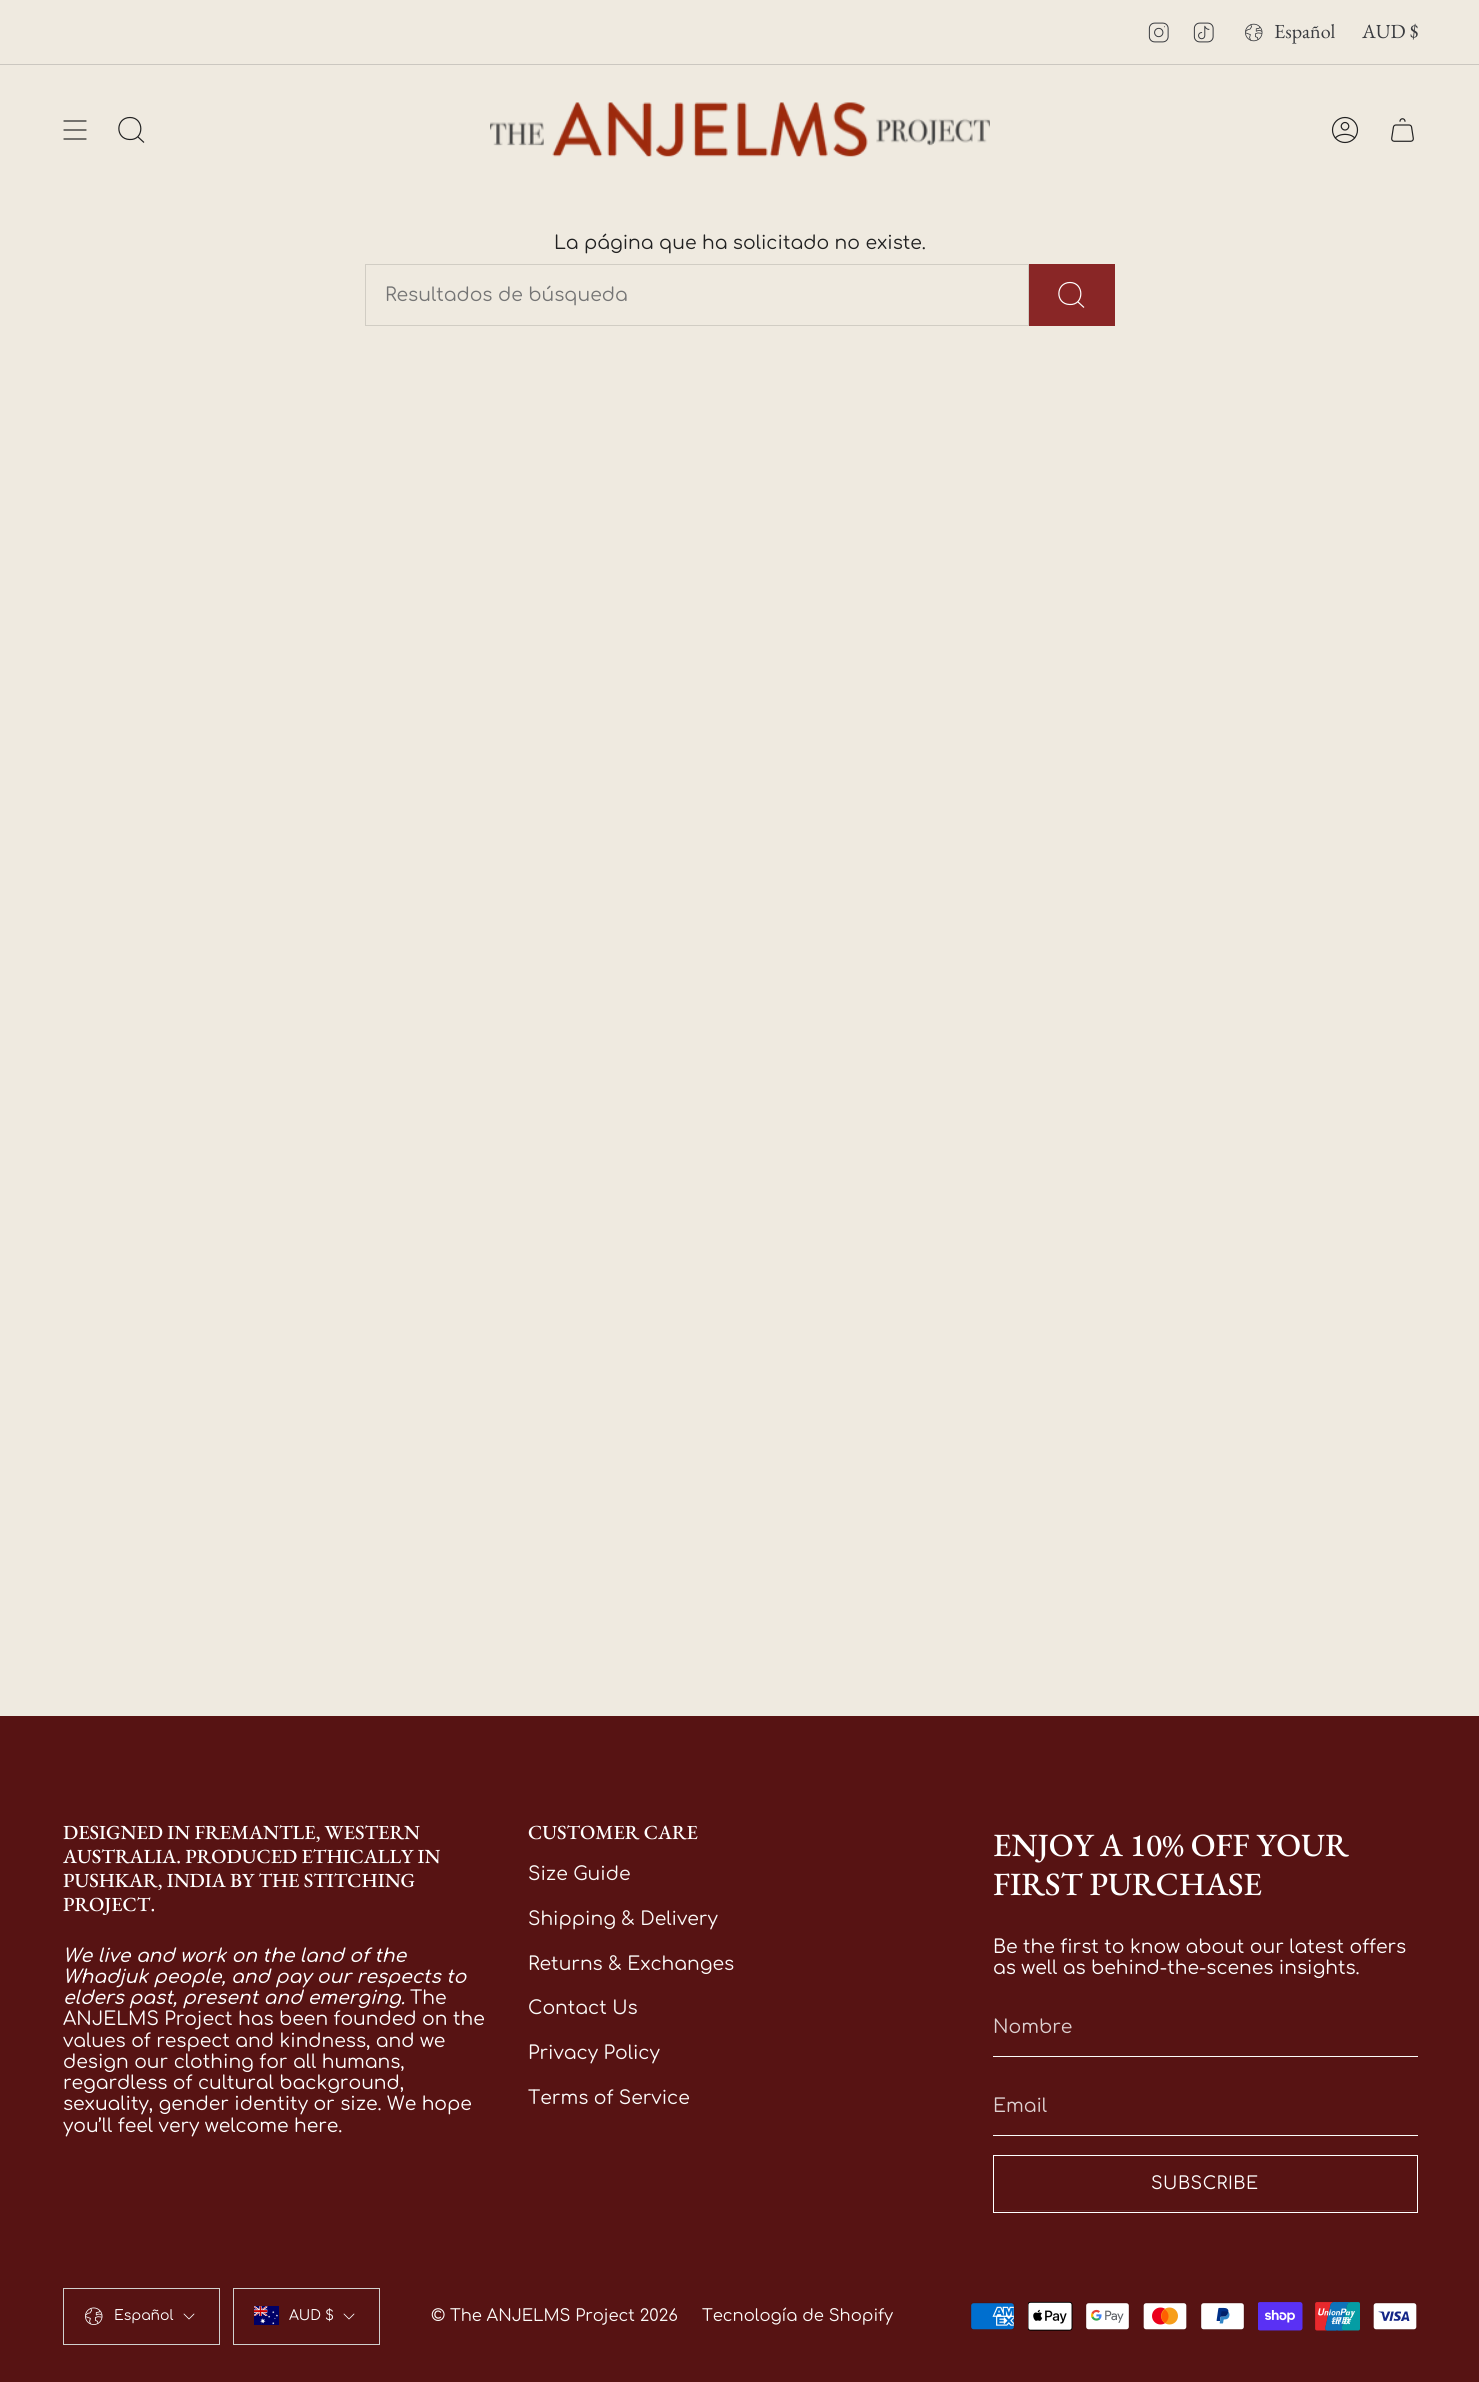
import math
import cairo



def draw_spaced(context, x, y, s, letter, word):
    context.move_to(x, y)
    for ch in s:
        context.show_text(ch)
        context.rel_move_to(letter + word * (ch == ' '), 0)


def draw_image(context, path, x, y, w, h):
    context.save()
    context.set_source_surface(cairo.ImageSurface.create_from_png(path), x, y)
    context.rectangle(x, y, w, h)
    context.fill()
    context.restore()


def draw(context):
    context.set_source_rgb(239 / 255, 234 / 255, 224 / 255)
    context.paint()
    draw_image(context, "images/1.png", 1148, 22, 21, 21)
    draw_image(context, "images/2.png", 1193, 22, 21, 21)
    draw_image(context, "images/3.png", 1245, 23, 18, 19)
    context.set_source_rgb(203 / 255, 199 / 255, 192 / 255)
    context.rectangle(0, 64, 1479, 1)
    context.fill()
    context.new_path()
    context.move_to(64, 121)
    context.line_to(86, 121)
    context.move_to(64, 130)
    context.line_to(86, 130)
    context.move_to(64, 139)
    context.line_to(86, 139)
    context.set_source_rgb(33 / 255, 33 / 255, 33 / 255)
    context.set_line_width(1.2)
    context.set_line_cap(cairo.LineCap.ROUND)
    context.set_line_join(cairo.LineJoin.ROUND)
    context.stroke()
    context.new_path()
    context.move_to(130, 117.5)
    context.curve_to(144.5, 117.5, 144.5, 140.5, 129.5, 139.5)
    context.curve_to(115, 139, 115.5, 117.5, 130, 117.5)
    context.close_path()
    context.move_to(137.5, 136.5)
    context.line_to(144, 142.5)
    context.set_line_cap(cairo.LineCap.BUTT)
    context.set_line_join(cairo.LineJoin.MITER)
    context.stroke()
    draw_image(context, "images/4.png", 490, 102, 500, 55)
    draw_image(context, "images/5.png", 1331, 116, 28, 28)
    draw_image(context, "images/6.png", 1391, 118, 23, 24)
    context.rectangle(365.5, 264.5, 663, 61)
    context.set_source_rgb(209 / 255, 205 / 255, 196 / 255)
    context.set_line_width(1)
    context.stroke()
    context.set_source_rgb(137 / 255, 38 / 255, 38 / 255)
    context.rectangle(1029, 264, 86, 62)
    context.fill()
    context.new_path()
    context.move_to(1070, 282.5)
    context.curve_to(1084.5, 282.5, 1084.5, 305.5, 1069.5, 304.5)
    context.curve_to(1055, 304, 1055.5, 282.5, 1070, 282.5)
    context.close_path()
    context.move_to(1077.5, 301.5)
    context.line_to(1084, 307.5)
    context.set_source_rgb(1, 1, 1)
    context.set_line_width(1.2)
    context.stroke()
    context.set_source_rgb(87 / 255, 19 / 255, 19 / 255)
    context.rectangle(0, 1716, 1479, 666)
    context.fill()
    context.set_source_rgb(252 / 255, 251 / 255, 249 / 255)
    context.rectangle(993, 2056, 425, 1)
    context.fill()
    context.rectangle(993, 2135, 425, 1)
    context.fill()
    context.rectangle(993.5, 2155.5, 424, 57)
    context.set_source_rgb(1, 1, 1)
    context.set_line_width(1)
    context.stroke()
    context.set_source_rgb(95 / 255, 31 / 255, 31 / 255)
    context.rectangle(994, 2210, 422, 1)
    context.fill()
    context.rectangle(63.5, 2288.5, 156, 56)
    context.set_source_rgb(209 / 255, 208 / 255, 206 / 255)
    context.stroke()
    draw_image(context, "images/7.png", 85, 2307, 18, 18)
    context.new_path()
    context.move_to(184, 2314)
    context.line_to(189, 2319)
    context.line_to(194, 2314)
    context.set_source_rgb(1, 1, 1)
    context.set_line_width(0.8)
    context.set_line_cap(cairo.LineCap.ROUND)
    context.set_line_join(cairo.LineJoin.ROUND)
    context.stroke()
    context.rectangle(233.5, 2288.5, 146, 56)
    context.set_source_rgb(209 / 255, 208 / 255, 206 / 255)
    context.set_line_width(1)
    context.set_line_cap(cairo.LineCap.BUTT)
    context.set_line_join(cairo.LineJoin.MITER)
    context.stroke()
    draw_image(context, "images/8.png", 254, 2306, 25, 19)
    context.new_path()
    context.move_to(344, 2314)
    context.line_to(349, 2319)
    context.line_to(354, 2314)
    context.set_source_rgb(1, 1, 1)
    context.set_line_width(0.8)
    context.set_line_cap(cairo.LineCap.ROUND)
    context.set_line_join(cairo.LineJoin.ROUND)
    context.stroke()
    draw_image(context, "images/9.png", 970, 2302, 45, 28)
    draw_image(context, "images/10.png", 1028, 2301, 45, 30)
    draw_image(context, "images/11.png", 1085, 2302, 45, 28)
    draw_image(context, "images/12.png", 1143, 2302, 44, 28)
    draw_image(context, "images/13.png", 1200, 2302, 45, 28)
    draw_image(context, "images/14.png", 1258, 2302, 45, 29)
    draw_image(context, "images/15.png", 1315, 2302, 45, 29)
    draw_image(context, "images/16.png", 1373, 2302, 44, 28)
    context.select_font_face("EB Garamond")
    context.set_font_size(20)
    context.set_source_rgb(57 / 255, 59 / 255, 63 / 255)
    context.move_to(1274, 38)
    context.show_text("Español")
    context.move_to(1362, 38)
    context.show_text("AUD $")
    context.select_font_face("Comfortaa")
    context.set_font_size(18.75)
    context.set_source_rgb(33 / 255, 33 / 255, 33 / 255)
    context.move_to(554, 249)
    context.show_text("La página que ha solicitado no existe.")
    context.set_source_rgb(117 / 255, 117 / 255, 117 / 255)
    context.move_to(385, 301)
    context.show_text("Resultados de búsqueda")
    context.select_font_face("EB Garamond Medium")
    context.set_font_size(20)
    context.set_source_rgb(1, 1, 1)
    context.move_to(63, 1839)
    context.show_text("DESIGNED IN FREMANTLE, WESTERN")
    context.move_to(63, 1863)
    context.show_text("AUSTRALIA. PRODUCED ETHICALLY IN")
    context.move_to(63, 1887)
    context.show_text("PUSHKAR, INDIA BY THE STITCHING")
    context.move_to(63, 1911)
    context.show_text("PROJECT.")
    context.select_font_face("Comfortaa Medium", cairo.FontSlant.ITALIC)
    context.set_font_size(18.75)
    context.move_to(63, 1962)
    context.show_text("We live and work on the land of the")
    context.move_to(63, 1983)
    context.show_text("Whadjuk people, and pay our respects to")
    context.move_to(63, 2004)
    context.show_text("elders past, present and emerging.")
    context.select_font_face("Comfortaa")
    context.move_to(410, 2004)
    context.show_text("The")
    context.move_to(63, 2025)
    context.show_text("ANJELMS Project has been founded on the")
    context.move_to(63, 2047)
    context.show_text("values of respect and kindness, and we")
    context.move_to(63, 2068)
    context.show_text("design our clothing for all humans,")
    context.move_to(63, 2089)
    context.show_text("regardless of cultural background,")
    context.move_to(63, 2110)
    context.show_text("sexuality, gender identity or size. We hope")
    context.move_to(63, 2132)
    context.show_text("you’ll feel very welcome here.")
    context.select_font_face("EB Garamond Medium")
    context.set_font_size(20)
    context.move_to(528, 1839)
    context.show_text("CUSTOMER CARE")
    context.select_font_face("Comfortaa")
    context.set_font_size(18.75)
    context.set_source_rgb(252 / 255, 251 / 255, 249 / 255)
    context.move_to(528, 1880)
    context.show_text("Size Guide")
    context.move_to(528, 1925)
    context.show_text("Shipping & Delivery")
    context.move_to(528, 1970)
    context.show_text("Returns & Exchanges")
    context.move_to(528, 2014)
    context.show_text("Contact Us")
    context.move_to(528, 2059)
    context.show_text("Privacy Policy")
    context.move_to(528, 2104)
    context.show_text("Terms of Service")
    context.select_font_face("EB Garamond Medium")
    context.set_font_size(32.5)
    context.set_source_rgb(1, 1, 1)
    context.move_to(993, 1856)
    context.show_text("ENJOY A 10% OFF YOUR")
    context.move_to(993, 1895)
    context.show_text("FIRST PURCHASE")
    context.select_font_face("Comfortaa")
    context.set_font_size(18.75)
    context.move_to(993, 1953)
    context.show_text("Be the first to know about our latest offers")
    context.move_to(993, 1974)
    context.show_text("as well as behind-the-scenes insights.")
    context.set_source_rgb(221 / 255, 208 / 255, 208 / 255)
    context.move_to(993, 2033)
    context.show_text("Nombre")
    context.move_to(993, 2112)
    context.show_text("Email")
    context.set_font_size(17.5)
    context.set_source_rgb(1, 1, 1)
    draw_spaced(context, 1151, 2189, "SUBSCRIBE", 0.5, 0)
    context.set_font_size(14)
    context.move_to(114, 2320)
    context.show_text("Español")
    context.move_to(289, 2320)
    context.show_text("AUD $")
    context.set_font_size(16.4)
    context.set_source_rgb(252 / 255, 251 / 255, 249 / 255)
    context.move_to(431, 2321)
    context.show_text("© The ANJELMS Project 2026")
    context.move_to(702, 2321)
    context.show_text("Tecnología de Shopify")


surface = cairo.ImageSurface(cairo.Format.RGB24, 1479, 2382)
context = cairo.Context(surface)
options = cairo.FontOptions()
options.set_hint_metrics(cairo.HintMetrics.OFF)
options.set_hint_style(cairo.HintStyle.NONE)
context.set_font_options(options)
context.set_miter_limit(4)
draw(context)
surface.write_to_png("out.png")
